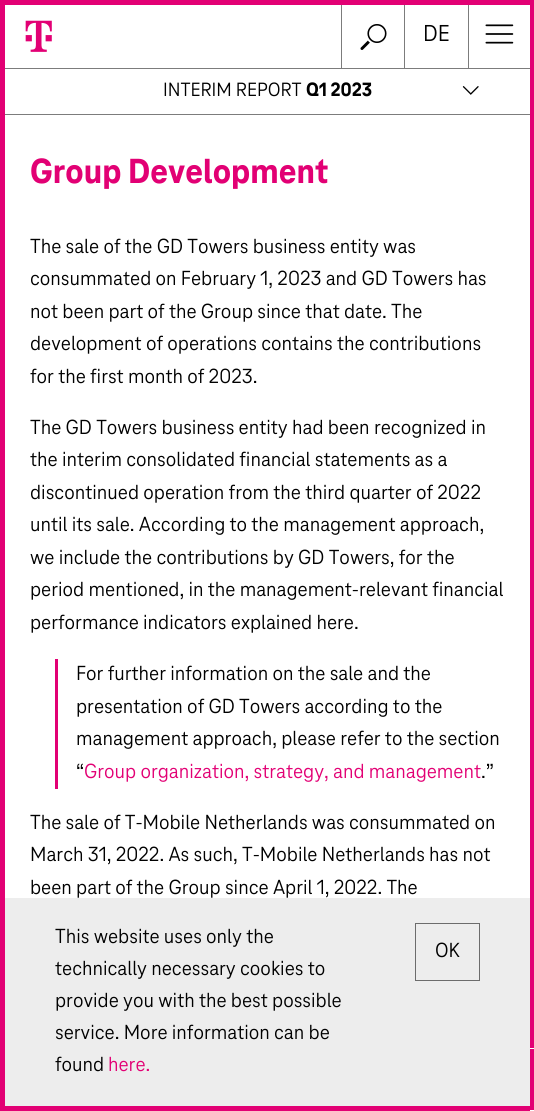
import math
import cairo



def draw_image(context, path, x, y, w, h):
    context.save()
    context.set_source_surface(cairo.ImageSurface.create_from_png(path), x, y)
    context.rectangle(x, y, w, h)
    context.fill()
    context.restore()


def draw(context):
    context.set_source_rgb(1, 1, 1)
    context.paint()
    context.set_source_rgb(124 / 255, 124 / 255, 124 / 255)
    context.rectangle(341, 5, 1, 63)
    context.fill()
    draw_image(context, "images/1.png", 360, 24, 27, 26)
    draw_image(context, "images/2.png", 25, 20, 27, 32)
    context.rectangle(404, 5, 1, 63)
    context.fill()
    context.rectangle(468, 5, 1, 63)
    context.fill()
    draw_image(context, "images/3.png", 485, 24, 29, 20)
    context.rectangle(5, 68, 525, 1)
    context.fill()
    context.rectangle(5, 114, 525, 1)
    context.fill()
    draw_image(context, "images/4.png", 462, 86, 17, 9)
    context.set_source_rgb(226 / 255, 0, 116 / 255)
    context.rectangle(55, 659, 3, 130)
    context.fill()
    context.rectangle(2.5, 2.5, 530, 1106)
    context.set_line_width(5)
    context.stroke()
    context.rectangle(473.5, 1048.5, 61, 62)
    context.set_source_rgb(1, 1, 1)
    context.set_line_width(1)
    context.stroke()
    context.set_source_rgb(237 / 255, 237 / 255, 237 / 255)
    context.rectangle(5, 898, 525, 208)
    context.fill()
    context.set_source_rgb(226 / 255, 0, 116 / 255)
    context.rectangle(473, 1106, 57, 5)
    context.fill()
    context.rectangle(415.5, 923.5, 64, 57)
    context.set_source_rgb(108 / 255, 108 / 255, 108 / 255)
    context.stroke()
    context.select_font_face("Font")
    context.set_font_size(24)
    context.set_source_rgb(0, 0, 0)
    context.move_to(423, 41)
    context.show_text("DE")
    context.set_font_size(20)
    context.move_to(163, 96)
    context.show_text("INTERIM REPORT")
    context.select_font_face("Font ExtraBold")
    context.move_to(306, 96)
    context.show_text("Q1 2023")
    context.set_font_size(36.25)
    context.set_source_rgb(226 / 255, 0, 116 / 255)
    context.move_to(30, 183)
    context.show_text("Group Development")
    context.select_font_face("Font")
    context.set_font_size(21.25)
    context.set_source_rgb(0, 0, 0)
    context.move_to(30, 253)
    context.show_text("The sale of the GD Towers business entity was")
    context.move_to(30, 285)
    context.show_text("consummated on February 1, 2023 and GD Towers has")
    context.move_to(30, 318)
    context.show_text("not been part of the Group since that date. The")
    context.move_to(30, 350)
    context.show_text("development of operations contains the contributions")
    context.move_to(30, 383)
    context.show_text("for the first month of 2023.")
    context.move_to(30, 434)
    context.show_text("The GD Towers business entity had been recognized in")
    context.move_to(30, 466)
    context.show_text("the interim consolidated financial statements as a")
    context.move_to(30, 499)
    context.show_text("discontinued operation from the third quarter of 2022")
    context.move_to(30, 531)
    context.show_text("until its sale. According to the management approach,")
    context.move_to(30, 564)
    context.show_text("we include the contributions by GD Towers, for the")
    context.move_to(30, 596)
    context.show_text("period mentioned, in the management-relevant financial")
    context.move_to(30, 629)
    context.show_text("performance indicators explained here.")
    context.move_to(76, 680)
    context.show_text("For further information on the sale and the")
    context.move_to(76, 713)
    context.show_text("presentation of GD Towers according to the")
    context.move_to(76, 745)
    context.show_text("management approach, please refer to the section")
    context.move_to(76, 778)
    context.show_text("“")
    context.set_source_rgb(226 / 255, 0, 116 / 255)
    context.move_to(84, 778)
    context.show_text("Group organization, strategy, and management")
    context.set_source_rgb(0, 0, 0)
    context.move_to(481, 778)
    context.show_text(".”")
    context.move_to(30, 829)
    context.show_text("The sale of T‑Mobile Netherlands was consummated on")
    context.move_to(30, 861)
    context.show_text("March 31, 2022. As such, T‑Mobile Netherlands has not")
    context.move_to(30, 894)
    context.show_text("been part of the Group since April 1, 2022. The")
    context.move_to(55, 943)
    context.show_text("This website uses only the")
    context.move_to(55, 975)
    context.show_text("technically necessary cookies to")
    context.move_to(55, 1007)
    context.show_text("provide you with the best possible")
    context.move_to(55, 1039)
    context.show_text("service. More information can be")
    context.move_to(55, 1071)
    context.show_text("found")
    context.set_source_rgb(226 / 255, 0, 116 / 255)
    context.move_to(108, 1071)
    context.show_text("here.")
    context.set_source_rgb(0, 0, 0)
    context.move_to(435, 957)
    context.show_text("OK")


surface = cairo.ImageSurface(cairo.Format.RGB24, 534, 1111)
context = cairo.Context(surface)
options = cairo.FontOptions()
options.set_hint_metrics(cairo.HintMetrics.OFF)
options.set_hint_style(cairo.HintStyle.NONE)
context.set_font_options(options)
context.set_miter_limit(4)
draw(context)
surface.write_to_png("out.png")
